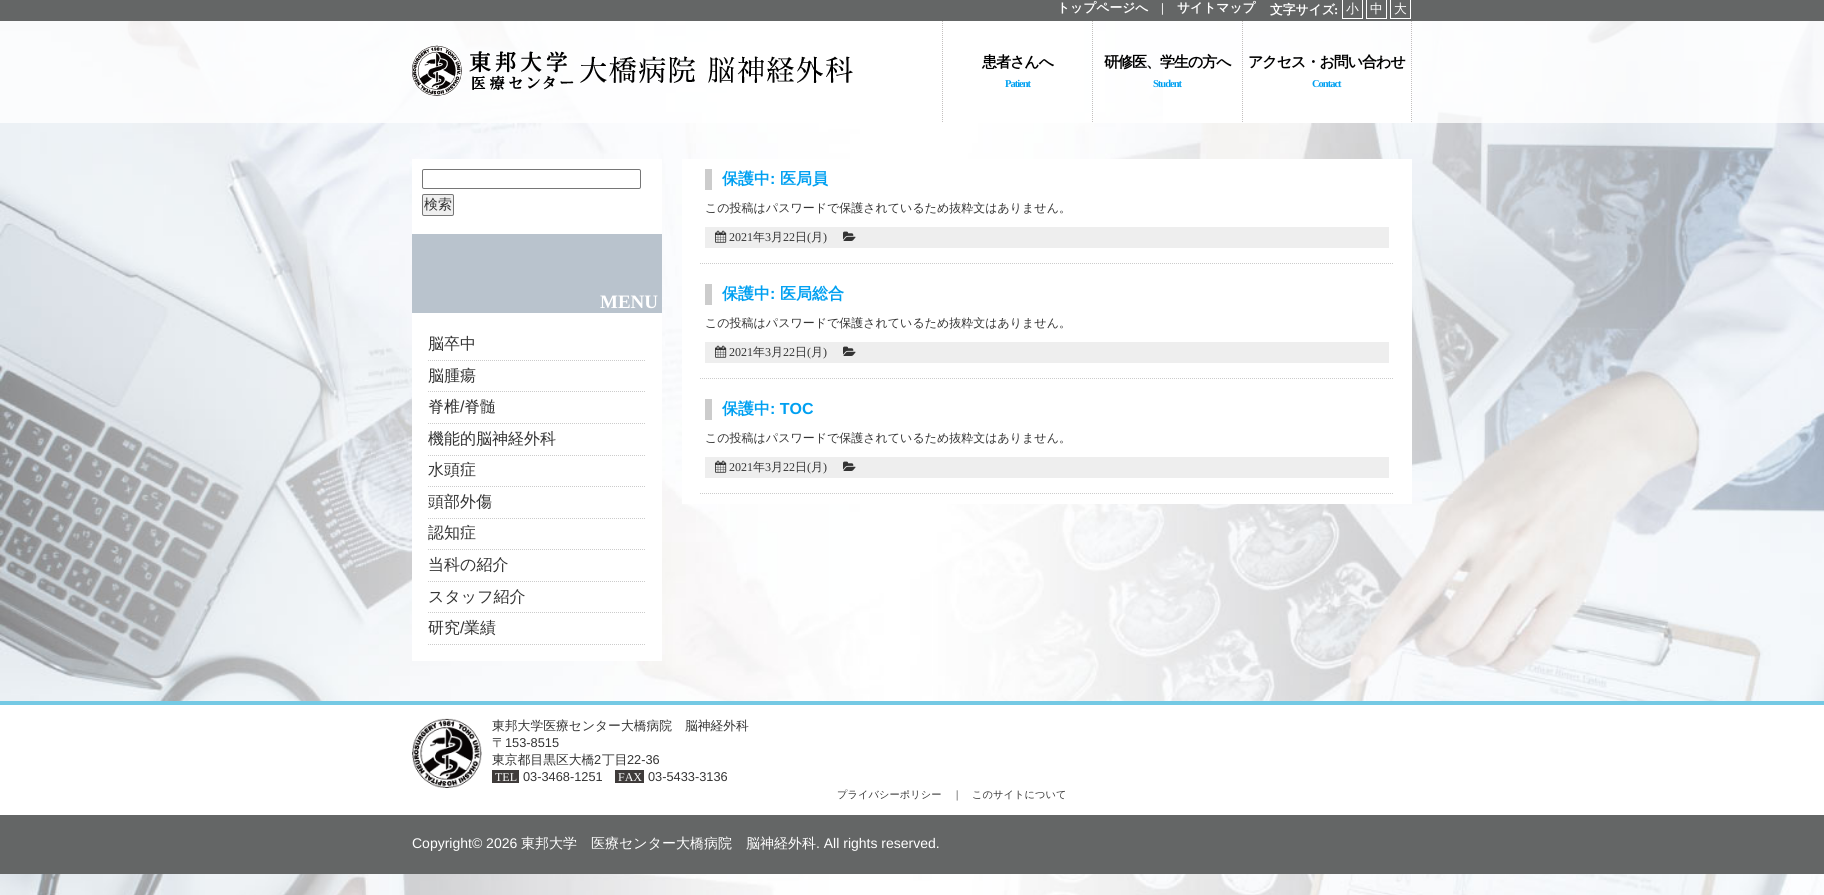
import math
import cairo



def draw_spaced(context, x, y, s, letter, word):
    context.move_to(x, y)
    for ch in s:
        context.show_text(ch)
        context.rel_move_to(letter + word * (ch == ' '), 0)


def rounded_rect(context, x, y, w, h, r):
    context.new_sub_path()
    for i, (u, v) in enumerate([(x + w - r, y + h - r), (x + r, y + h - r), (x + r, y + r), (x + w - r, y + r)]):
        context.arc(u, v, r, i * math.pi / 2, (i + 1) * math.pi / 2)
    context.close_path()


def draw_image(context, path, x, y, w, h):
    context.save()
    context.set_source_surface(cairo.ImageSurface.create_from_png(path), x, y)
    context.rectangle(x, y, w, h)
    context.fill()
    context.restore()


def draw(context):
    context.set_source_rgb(1, 1, 1)
    context.paint()
    draw_image(context, "images/1.png", 0, 21, 1824, 874)
    context.set_source_rgb(100 / 255, 102 / 255, 102 / 255)
    context.rectangle(0, 0, 1824, 21)
    context.fill()
    context.rectangle(1342.5, -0.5, 20, 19)
    context.set_source_rgb(1, 1, 1)
    context.set_line_width(1)
    context.stroke()
    context.rectangle(1366.5, -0.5, 20, 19)
    context.stroke()
    context.rectangle(1390.5, -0.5, 20, 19)
    context.stroke()
    context.set_source_rgba(1, 1, 1, 0.79)
    context.rectangle(0, 21, 1824, 102)
    context.fill()
    draw_image(context, "images/2.png", 412, 45, 441, 51)
    context.set_source_rgb(1, 1, 1)
    context.rectangle(1163, 65, 249, 58)
    context.fill()
    context.new_path()
    context.move_to(1411.5, 21)
    context.line_to(1411.5, 123)
    context.set_source_rgb(195 / 255, 191 / 255, 190 / 255)
    context.set_dash([1, 1])
    context.stroke()
    context.new_path()
    context.move_to(942.5, 21)
    context.line_to(942.5, 123)
    context.stroke()
    context.new_path()
    context.move_to(1092.5, 21)
    context.line_to(1092.5, 123)
    context.stroke()
    context.new_path()
    context.move_to(1242.5, 21)
    context.line_to(1242.5, 123)
    context.stroke()
    context.set_source_rgb(1, 1, 1)
    context.rectangle(412, 159, 250, 75)
    context.fill()
    rounded_rect(context, 422.5, 169.5, 218, 19, 1.5)
    context.set_source_rgb(118 / 255, 118 / 255, 118 / 255)
    context.set_dash([])
    context.stroke()
    context.set_source_rgb(239 / 255, 239 / 255, 239 / 255)
    rounded_rect(context, 422.5, 194.5, 31, 21, 1.5)
    context.fill_preserve()
    context.set_source_rgb(118 / 255, 118 / 255, 118 / 255)
    context.stroke()
    context.set_source_rgb(185 / 255, 195 / 255, 205 / 255)
    context.rectangle(412, 234, 250, 79)
    context.fill()
    context.set_source_rgb(1, 1, 1)
    context.rectangle(412, 313, 250, 348)
    context.fill()
    context.new_path()
    context.move_to(428, 360.5)
    context.line_to(646, 360.5)
    context.set_source_rgb(204 / 255, 204 / 255, 204 / 255)
    context.set_dash([1, 1])
    context.stroke()
    context.new_path()
    context.move_to(428, 391.5)
    context.line_to(646, 391.5)
    context.stroke()
    context.new_path()
    context.move_to(428, 423.5)
    context.line_to(646, 423.5)
    context.stroke()
    context.new_path()
    context.move_to(428, 455.5)
    context.line_to(646, 455.5)
    context.stroke()
    context.new_path()
    context.move_to(428, 486.5)
    context.line_to(646, 486.5)
    context.stroke()
    context.new_path()
    context.move_to(428, 518.5)
    context.line_to(646, 518.5)
    context.stroke()
    context.new_path()
    context.move_to(428, 549.5)
    context.line_to(646, 549.5)
    context.stroke()
    context.new_path()
    context.move_to(428, 581.5)
    context.line_to(646, 581.5)
    context.stroke()
    context.new_path()
    context.move_to(428, 612.5)
    context.line_to(646, 612.5)
    context.stroke()
    context.new_path()
    context.move_to(428, 644.5)
    context.line_to(646, 644.5)
    context.stroke()
    context.set_source_rgb(1, 1, 1)
    context.rectangle(682, 159, 730, 345)
    context.fill()
    context.new_path()
    context.move_to(700, 263.5)
    context.line_to(1394, 263.5)
    context.set_source_rgb(204 / 255, 204 / 255, 204 / 255)
    context.stroke()
    context.rectangle(705, 169, 7, 21)
    context.fill()
    context.set_source_rgb(238 / 255, 238 / 255, 238 / 255)
    context.rectangle(705, 227, 684, 21)
    context.fill()
    draw_image(context, "images/3.png", 715, 230, 12, 13)
    draw_image(context, "images/4.png", 843, 231, 13, 10)
    context.new_path()
    context.move_to(700, 378.5)
    context.line_to(1394, 378.5)
    context.set_source_rgb(204 / 255, 204 / 255, 204 / 255)
    context.stroke()
    context.rectangle(705, 284, 7, 21)
    context.fill()
    context.set_source_rgb(238 / 255, 238 / 255, 238 / 255)
    context.rectangle(705, 342, 684, 21)
    context.fill()
    draw_image(context, "images/3.png", 715, 345, 12, 13)
    draw_image(context, "images/4.png", 843, 346, 13, 10)
    context.new_path()
    context.move_to(700, 493.5)
    context.line_to(1394, 493.5)
    context.set_source_rgb(204 / 255, 204 / 255, 204 / 255)
    context.stroke()
    context.rectangle(705, 399, 7, 21)
    context.fill()
    context.set_source_rgb(238 / 255, 238 / 255, 238 / 255)
    context.rectangle(705, 457, 684, 21)
    context.fill()
    draw_image(context, "images/3.png", 715, 460, 12, 13)
    draw_image(context, "images/4.png", 843, 461, 13, 10)
    context.set_source_rgb(100 / 255, 102 / 255, 102 / 255)
    context.rectangle(0, 815, 1824, 59)
    context.fill()
    context.set_source_rgb(1, 1, 1)
    context.rectangle(0, 705, 1824, 110)
    context.fill()
    context.set_source_rgb(116 / 255, 201 / 255, 228 / 255)
    context.rectangle(0, 701, 1824, 4)
    context.fill()
    draw_image(context, "images/5.png", 412, 718, 70, 70)
    context.set_source_rgb(63 / 255, 59 / 255, 58 / 255)
    context.rectangle(492, 770, 27, 13)
    context.fill()
    context.rectangle(615, 770, 29, 13)
    context.fill()
    context.select_font_face("WenQuanYi Zen Hei", cairo.FontSlant.NORMAL, cairo.FontWeight.BOLD)
    context.set_font_size(12.8)
    context.set_source_rgb(1, 1, 1)
    context.move_to(1057, 12)
    context.show_text("トップページへ")
    context.select_font_face("Liberation Serif", cairo.FontSlant.NORMAL, cairo.FontWeight.BOLD)
    context.move_to(1161, 12)
    context.show_text("|")
    context.select_font_face("WenQuanYi Zen Hei", cairo.FontSlant.NORMAL, cairo.FontWeight.BOLD)
    context.move_to(1177, 12)
    context.show_text("サイトマップ")
    context.move_to(1270, 14)
    context.show_text("文字サイズ")
    context.select_font_face("Liberation Serif", cairo.FontSlant.NORMAL, cairo.FontWeight.BOLD)
    context.move_to(1334, 14)
    context.show_text(":")
    context.select_font_face("WenQuanYi Zen Hei Medium")
    context.move_to(1346, 13)
    context.show_text("小")
    context.move_to(1370, 13)
    context.show_text("中")
    context.move_to(1394, 13)
    context.show_text("大")
    context.select_font_face("WenQuanYi Zen Hei", cairo.FontSlant.NORMAL, cairo.FontWeight.BOLD)
    context.set_font_size(15)
    context.set_source_rgb(0, 0, 0)
    draw_spaced(context, 982, 67, "患者さんへ", -1, 0)
    context.select_font_face("Liberation Serif", cairo.FontSlant.NORMAL, cairo.FontWeight.BOLD)
    context.set_font_size(10.5)
    context.set_source_rgb(0, 160 / 255, 241 / 255)
    draw_spaced(context, 1005, 87, "Patient", -1, 0)
    context.select_font_face("WenQuanYi Zen Hei", cairo.FontSlant.NORMAL, cairo.FontWeight.BOLD)
    context.set_font_size(15)
    context.set_source_rgb(0, 0, 0)
    draw_spaced(context, 1104, 67, "研修医、学生の方へ", -1, 0)
    context.select_font_face("Liberation Serif", cairo.FontSlant.NORMAL, cairo.FontWeight.BOLD)
    context.set_font_size(10.5)
    context.set_source_rgb(0, 160 / 255, 241 / 255)
    draw_spaced(context, 1153, 87, "Student", -1, 0)
    context.select_font_face("WenQuanYi Zen Hei", cairo.FontSlant.NORMAL, cairo.FontWeight.BOLD)
    context.set_font_size(15)
    context.set_source_rgb(0, 0, 0)
    draw_spaced(context, 1248, 67, "アクセス・お問い合わせ", -1, 0)
    context.select_font_face("Liberation Serif", cairo.FontSlant.NORMAL, cairo.FontWeight.BOLD)
    context.set_font_size(10.5)
    context.set_source_rgb(0, 160 / 255, 241 / 255)
    draw_spaced(context, 1312, 87, "Contact", -1, 0)
    context.select_font_face("WenQuanYi Zen Hei Medium")
    context.set_font_size(14)
    context.set_source_rgb(51 / 255, 51 / 255, 51 / 255)
    context.move_to(424, 209)
    context.show_text("検索")
    context.select_font_face("Liberation Serif", cairo.FontSlant.NORMAL, cairo.FontWeight.BOLD)
    context.set_font_size(19)
    context.set_source_rgb(1, 1, 1)
    context.move_to(600, 308)
    context.show_text("MENU")
    context.select_font_face("WenQuanYi Zen Hei Medium")
    context.set_font_size(16)
    context.set_source_rgb(51 / 255, 51 / 255, 51 / 255)
    context.move_to(428, 349)
    context.show_text("脳卒中")
    context.move_to(428, 381)
    context.show_text("脳腫瘍")
    context.move_to(428, 412)
    context.show_text("脊椎")
    context.select_font_face("Liberation Sans")
    context.move_to(460, 412)
    context.show_text("/")
    context.select_font_face("WenQuanYi Zen Hei Medium")
    context.move_to(464, 412)
    context.show_text("脊髄")
    context.move_to(428, 444)
    context.show_text("機能的脳神経外科")
    context.move_to(428, 475)
    context.show_text("水頭症")
    context.move_to(428, 507)
    context.show_text("頭部外傷")
    context.move_to(428, 538)
    context.show_text("認知症")
    context.move_to(428, 570)
    context.show_text("当科の紹介")
    context.move_to(428, 602)
    context.show_text("スタッフ紹介")
    context.move_to(428, 633)
    context.show_text("研究")
    context.select_font_face("Liberation Sans")
    context.move_to(460, 633)
    context.show_text("/")
    context.select_font_face("WenQuanYi Zen Hei Medium")
    context.move_to(464, 633)
    context.show_text("業績")
    context.select_font_face("WenQuanYi Zen Hei", cairo.FontSlant.NORMAL, cairo.FontWeight.BOLD)
    context.set_source_rgb(0, 160 / 255, 241 / 255)
    context.move_to(722, 184)
    context.show_text("保護中")
    context.select_font_face("Liberation Sans", cairo.FontSlant.NORMAL, cairo.FontWeight.BOLD)
    context.move_to(770, 184)
    context.show_text(":")
    context.select_font_face("WenQuanYi Zen Hei", cairo.FontSlant.NORMAL, cairo.FontWeight.BOLD)
    context.move_to(780, 184)
    context.show_text("医局員")
    context.select_font_face("WenQuanYi Zen Hei Medium")
    context.set_font_size(12)
    context.set_source_rgb(51 / 255, 51 / 255, 51 / 255)
    context.move_to(705, 212)
    context.show_text("この投稿はパスワードで保護されているため抜粋文はありません。")
    context.select_font_face("Liberation Serif")
    context.move_to(729, 241)
    context.show_text("2021")
    context.select_font_face("WenQuanYi Zen Hei Medium")
    context.move_to(753, 241)
    context.show_text("年")
    context.select_font_face("Liberation Serif")
    context.move_to(765, 241)
    context.show_text("3")
    context.select_font_face("WenQuanYi Zen Hei Medium")
    context.move_to(771, 241)
    context.show_text("月")
    context.select_font_face("Liberation Serif")
    context.move_to(783, 241)
    context.show_text("22")
    context.select_font_face("WenQuanYi Zen Hei Medium")
    context.move_to(795, 241)
    context.show_text("日")
    context.select_font_face("Liberation Serif")
    context.move_to(807, 241)
    context.show_text("(")
    context.select_font_face("WenQuanYi Zen Hei Medium")
    context.move_to(811, 241)
    context.show_text("月")
    context.select_font_face("Liberation Serif")
    context.move_to(823, 241)
    context.show_text(")")
    context.select_font_face("WenQuanYi Zen Hei", cairo.FontSlant.NORMAL, cairo.FontWeight.BOLD)
    context.set_font_size(16)
    context.set_source_rgb(0, 160 / 255, 241 / 255)
    context.move_to(722, 299)
    context.show_text("保護中")
    context.select_font_face("Liberation Sans", cairo.FontSlant.NORMAL, cairo.FontWeight.BOLD)
    context.move_to(770, 299)
    context.show_text(":")
    context.select_font_face("WenQuanYi Zen Hei", cairo.FontSlant.NORMAL, cairo.FontWeight.BOLD)
    context.move_to(780, 299)
    context.show_text("医局総合")
    context.select_font_face("WenQuanYi Zen Hei Medium")
    context.set_font_size(12)
    context.set_source_rgb(51 / 255, 51 / 255, 51 / 255)
    context.move_to(705, 327)
    context.show_text("この投稿はパスワードで保護されているため抜粋文はありません。")
    context.select_font_face("Liberation Serif")
    context.move_to(729, 356)
    context.show_text("2021")
    context.select_font_face("WenQuanYi Zen Hei Medium")
    context.move_to(753, 356)
    context.show_text("年")
    context.select_font_face("Liberation Serif")
    context.move_to(765, 356)
    context.show_text("3")
    context.select_font_face("WenQuanYi Zen Hei Medium")
    context.move_to(771, 356)
    context.show_text("月")
    context.select_font_face("Liberation Serif")
    context.move_to(783, 356)
    context.show_text("22")
    context.select_font_face("WenQuanYi Zen Hei Medium")
    context.move_to(795, 356)
    context.show_text("日")
    context.select_font_face("Liberation Serif")
    context.move_to(807, 356)
    context.show_text("(")
    context.select_font_face("WenQuanYi Zen Hei Medium")
    context.move_to(811, 356)
    context.show_text("月")
    context.select_font_face("Liberation Serif")
    context.move_to(823, 356)
    context.show_text(")")
    context.select_font_face("WenQuanYi Zen Hei", cairo.FontSlant.NORMAL, cairo.FontWeight.BOLD)
    context.set_font_size(16)
    context.set_source_rgb(0, 160 / 255, 241 / 255)
    context.move_to(722, 414)
    context.show_text("保護中")
    context.select_font_face("Liberation Sans", cairo.FontSlant.NORMAL, cairo.FontWeight.BOLD)
    context.move_to(770, 414)
    context.show_text(": TOC")
    context.select_font_face("WenQuanYi Zen Hei Medium")
    context.set_font_size(12)
    context.set_source_rgb(51 / 255, 51 / 255, 51 / 255)
    context.move_to(705, 442)
    context.show_text("この投稿はパスワードで保護されているため抜粋文はありません。")
    context.select_font_face("Liberation Serif")
    context.move_to(729, 471)
    context.show_text("2021")
    context.select_font_face("WenQuanYi Zen Hei Medium")
    context.move_to(753, 471)
    context.show_text("年")
    context.select_font_face("Liberation Serif")
    context.move_to(765, 471)
    context.show_text("3")
    context.select_font_face("WenQuanYi Zen Hei Medium")
    context.move_to(771, 471)
    context.show_text("月")
    context.select_font_face("Liberation Serif")
    context.move_to(783, 471)
    context.show_text("22")
    context.select_font_face("WenQuanYi Zen Hei Medium")
    context.move_to(795, 471)
    context.show_text("日")
    context.select_font_face("Liberation Serif")
    context.move_to(807, 471)
    context.show_text("(")
    context.select_font_face("WenQuanYi Zen Hei Medium")
    context.move_to(811, 471)
    context.show_text("月")
    context.select_font_face("Liberation Serif")
    context.move_to(823, 471)
    context.show_text(")")
    context.select_font_face("WenQuanYi Zen Hei Medium")
    context.set_font_size(12.8)
    context.move_to(492, 730)
    context.show_text("東邦大学医療センター大橋病院　脳神経外科")
    context.move_to(492, 747)
    context.show_text("〒")
    context.select_font_face("Liberation Sans")
    context.move_to(505, 747)
    context.show_text("153-8515")
    context.select_font_face("WenQuanYi Zen Hei Medium")
    context.move_to(492, 764)
    context.show_text("東京都目黒区大橋")
    context.select_font_face("Liberation Sans")
    context.move_to(594, 764)
    context.show_text("2")
    context.select_font_face("WenQuanYi Zen Hei Medium")
    context.move_to(602, 764)
    context.show_text("丁目")
    context.select_font_face("Liberation Sans")
    context.move_to(627, 764)
    context.show_text("22-36")
    context.select_font_face("Liberation Serif")
    context.set_font_size(12)
    context.set_source_rgb(1, 1, 1)
    context.move_to(495, 781)
    context.show_text("TEL")
    context.select_font_face("Liberation Sans")
    context.set_font_size(12.8)
    context.set_source_rgb(51 / 255, 51 / 255, 51 / 255)
    context.move_to(523, 781)
    context.show_text("03-3468-1251")
    context.select_font_face("Liberation Serif")
    context.set_font_size(12)
    context.set_source_rgb(1, 1, 1)
    context.move_to(618, 781)
    context.show_text("FAX")
    context.select_font_face("Liberation Sans")
    context.set_font_size(12.8)
    context.set_source_rgb(51 / 255, 51 / 255, 51 / 255)
    context.move_to(648, 781)
    context.show_text("03-5433-3136")
    context.select_font_face("WenQuanYi Zen Hei Medium")
    context.set_font_size(10.25)
    context.move_to(837, 798)
    context.show_text("プライバシーポリシー")
    context.move_to(952, 798)
    context.show_text("｜")
    context.move_to(972, 798)
    context.show_text("このサイトについて")
    context.select_font_face("Liberation Sans")
    context.set_font_size(14)
    context.set_source_rgb(1, 1, 1)
    context.move_to(412, 848)
    context.show_text("Copyright© 2026")
    context.select_font_face("WenQuanYi Zen Hei Medium")
    context.move_to(521, 848)
    context.show_text("東邦大学　医療センター大橋病院　脳神経外科")
    context.select_font_face("Liberation Sans")
    context.move_to(816, 848)
    context.show_text(". All rights reserved.")


surface = cairo.ImageSurface(cairo.Format.RGB24, 1824, 895)
context = cairo.Context(surface)
options = cairo.FontOptions()
options.set_hint_metrics(cairo.HintMetrics.OFF)
options.set_hint_style(cairo.HintStyle.NONE)
context.set_font_options(options)
context.set_miter_limit(4)
draw(context)
surface.write_to_png("out.png")
